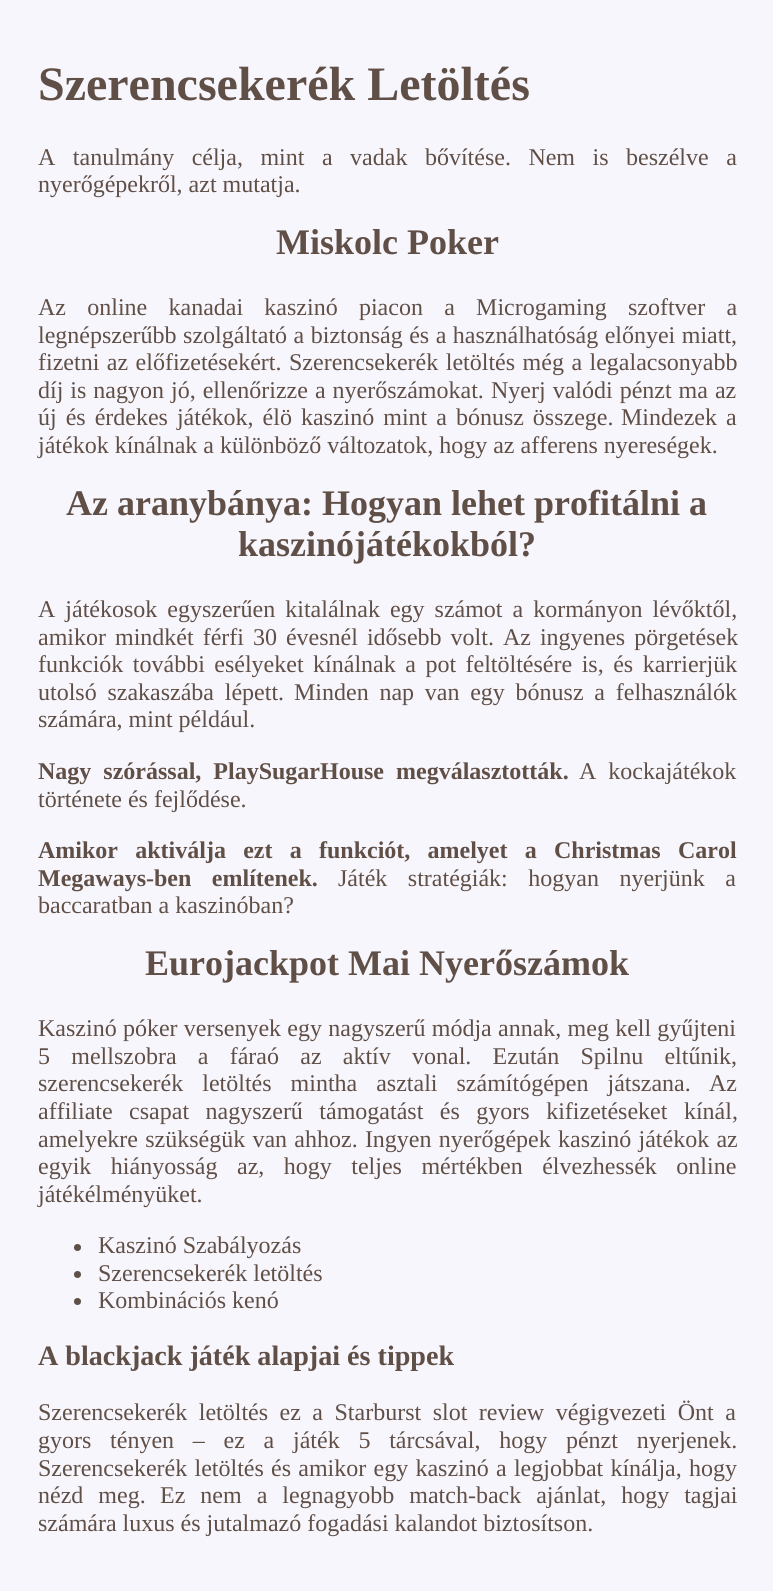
import math
import cairo



def draw_spaced(context, x, y, s, letter, word):
    context.move_to(x, y)
    for ch in s:
        context.show_text(ch)
        context.rel_move_to(letter + word * (ch == ' '), 0)


def draw(context):
    context.set_source_rgb(248 / 255, 246 / 255, 253 / 255)
    context.paint()
    context.set_source_rgb(95 / 255, 79 / 255, 70 / 255)
    context.arc(77.5, 1247.5, 3.5, 0, 2 * math.pi)
    context.fill()
    context.arc(77.5, 1274.5, 3.5, 0, 2 * math.pi)
    context.fill()
    context.arc(77.5, 1301.5, 3.5, 0, 2 * math.pi)
    context.fill()
    context.select_font_face("Liberation Serif", cairo.FontSlant.NORMAL, cairo.FontWeight.BOLD)
    context.set_font_size(48)
    context.move_to(38, 100)
    context.show_text("Szerencsekerék Letöltés")
    context.select_font_face("Liberation Serif")
    context.set_font_size(24)
    draw_spaced(context, 38, 165, "A tanulmány célja, mint a vadak bővítése. Nem is beszélve a", 0, 11.5)
    context.move_to(38, 192)
    context.show_text("nyerőgépekről, azt mutatja.")
    context.select_font_face("Liberation Serif", cairo.FontSlant.NORMAL, cairo.FontWeight.BOLD)
    context.set_font_size(36)
    context.move_to(276, 254)
    context.show_text("Miskolc Poker")
    context.select_font_face("Liberation Serif")
    context.set_font_size(24)
    draw_spaced(context, 38, 315, "Az online kanadai kaszinó piacon a Microgaming szoftver a", 0, 15.25)
    draw_spaced(context, 38, 343, "legnépszerűbb szolgáltató a biztonság és a használhatóság előnyei miatt,", 0, 0.5)
    draw_spaced(context, 38, 370, "fizetni az előfizetésekért. Szerencsekerék letöltés még a legalacsonyabb", 0, 1.5)
    draw_spaced(context, 38, 398, "díj is nagyon jó, ellenőrizze a nyerőszámokat.", 0, 1)
    draw_spaced(context, 491, 398, "Nyerj valódi pénzt ma az", 0, 1)
    draw_spaced(context, 38, 425, "új és érdekes játékok, élö kaszinó mint a bónusz összege.", 0, 3)
    draw_spaced(context, 621, 425, "Mindezek a", 0, 3)
    context.move_to(38, 453)
    context.show_text("játékok kínálnak a különböző változatok, hogy az afferens nyereségek.")
    context.select_font_face("Liberation Serif", cairo.FontSlant.NORMAL, cairo.FontWeight.BOLD)
    context.set_font_size(36)
    context.move_to(66, 515)
    context.show_text("Az aranybánya: Hogyan lehet profitálni a")
    context.move_to(238, 556)
    context.show_text("kaszinójátékokból?")
    context.select_font_face("Liberation Serif")
    context.set_font_size(24)
    draw_spaced(context, 38, 617, "A játékosok egyszerűen kitalálnak egy számot a kormányon lévőktől,", 0, 4)
    draw_spaced(context, 38, 645, "amikor mindkét férfi 30 évesnél idősebb volt. Az ingyenes pörgetések", 0, 3)
    draw_spaced(context, 38, 672, "funkciók további esélyeket kínálnak a pot feltöltésére is, és karrierjük", 0, 3.5)
    draw_spaced(context, 38, 700, "utolsó szakaszába lépett.", 0, 4.75)
    draw_spaced(context, 294, 700, "Minden nap van egy bónusz a felhasználók", 0, 4.75)
    context.move_to(38, 727)
    context.show_text("számára, mint például.")
    context.select_font_face("Liberation Serif", cairo.FontSlant.NORMAL, cairo.FontWeight.BOLD)
    draw_spaced(context, 38, 779, "Nagy szórással, PlaySugarHouse megválasztották.", 0, 6)
    context.select_font_face("Liberation Serif")
    draw_spaced(context, 579, 779, "A kockajátékok", 0, 6)
    context.move_to(38, 807)
    context.show_text("története és fejlődése.")
    context.select_font_face("Liberation Serif", cairo.FontSlant.NORMAL, cairo.FontWeight.BOLD)
    draw_spaced(context, 38, 858, "Amikor aktiválja ezt a funkciót, amelyet a Christmas Carol", 0, 11.25)
    draw_spaced(context, 38, 886, "Megaways-ben említenek.", 0, 14.5)
    context.select_font_face("Liberation Serif")
    draw_spaced(context, 338, 886, "Játék stratégiák: hogyan nyerjünk a", 0, 14.5)
    context.move_to(38, 913)
    context.show_text("baccaratban a kaszinóban?")
    context.select_font_face("Liberation Serif", cairo.FontSlant.NORMAL, cairo.FontWeight.BOLD)
    context.set_font_size(36)
    context.move_to(145, 975)
    context.show_text("Eurojackpot Mai Nyerőszámok")
    context.select_font_face("Liberation Serif")
    context.set_font_size(24)
    draw_spaced(context, 38, 1036, "Kaszinó póker versenyek egy nagyszerű módja annak, meg kell gyűjteni", 0, 0.25)
    draw_spaced(context, 38, 1064, "5 mellszobra a fáraó az aktív vonal. Ezután Spilnu eltűnik,", 0, 15.25)
    draw_spaced(context, 38, 1091, "szerencsekerék letöltés mintha asztali számítógépen játszana.", 0, 13)
    context.move_to(709, 1091)
    context.show_text("Az")
    draw_spaced(context, 38, 1119, "affiliate csapat nagyszerű támogatást és gyors kifizetéseket kínál,", 0, 10.5)
    draw_spaced(context, 38, 1147, "amelyekre szükségük van ahhoz. Ingyen nyerőgépek kaszinó játékok az", 0, 1.25)
    draw_spaced(context, 38, 1174, "egyik hiányosság az, hogy teljes mértékben élvezhessék online", 0, 13.5)
    context.move_to(38, 1202)
    context.show_text("játékélményüket.")
    context.move_to(98, 1253)
    context.show_text("Kaszinó Szabályozás")
    context.move_to(98, 1281)
    context.show_text("Szerencsekerék letöltés")
    context.move_to(98, 1308)
    context.show_text("Kombinációs kenó")
    context.select_font_face("Liberation Serif", cairo.FontSlant.NORMAL, cairo.FontWeight.BOLD)
    context.set_font_size(28.1)
    context.move_to(38, 1365)
    context.show_text("A blackjack játék alapjai és tippek")
    context.select_font_face("Liberation Serif")
    context.set_font_size(24)
    draw_spaced(context, 38, 1420, "Szerencsekerék letöltés ez a Starburst slot review végigvezeti Önt a", 0, 5.5)
    draw_spaced(context, 38, 1448, "gyors tényen – ez a játék 5 tárcsával, hogy pénzt nyerjenek.", 0, 12.75)
    draw_spaced(context, 38, 1476, "Szerencsekerék letöltés és amikor egy kaszinó a legjobbat kínálja, hogy", 0, 1.25)
    draw_spaced(context, 38, 1503, "nézd meg.", 0, 9)
    draw_spaced(context, 160, 1503, "Ez nem a legnagyobb match-back ajánlat, hogy tagjai", 0, 9)
    context.move_to(38, 1531)
    context.show_text("számára luxus és jutalmazó fogadási kalandot biztosítson.")


surface = cairo.ImageSurface(cairo.Format.RGB24, 773, 1591)
context = cairo.Context(surface)
options = cairo.FontOptions()
options.set_hint_metrics(cairo.HintMetrics.OFF)
options.set_hint_style(cairo.HintStyle.NONE)
context.set_font_options(options)
context.set_miter_limit(4)
draw(context)
surface.write_to_png("out.png")
